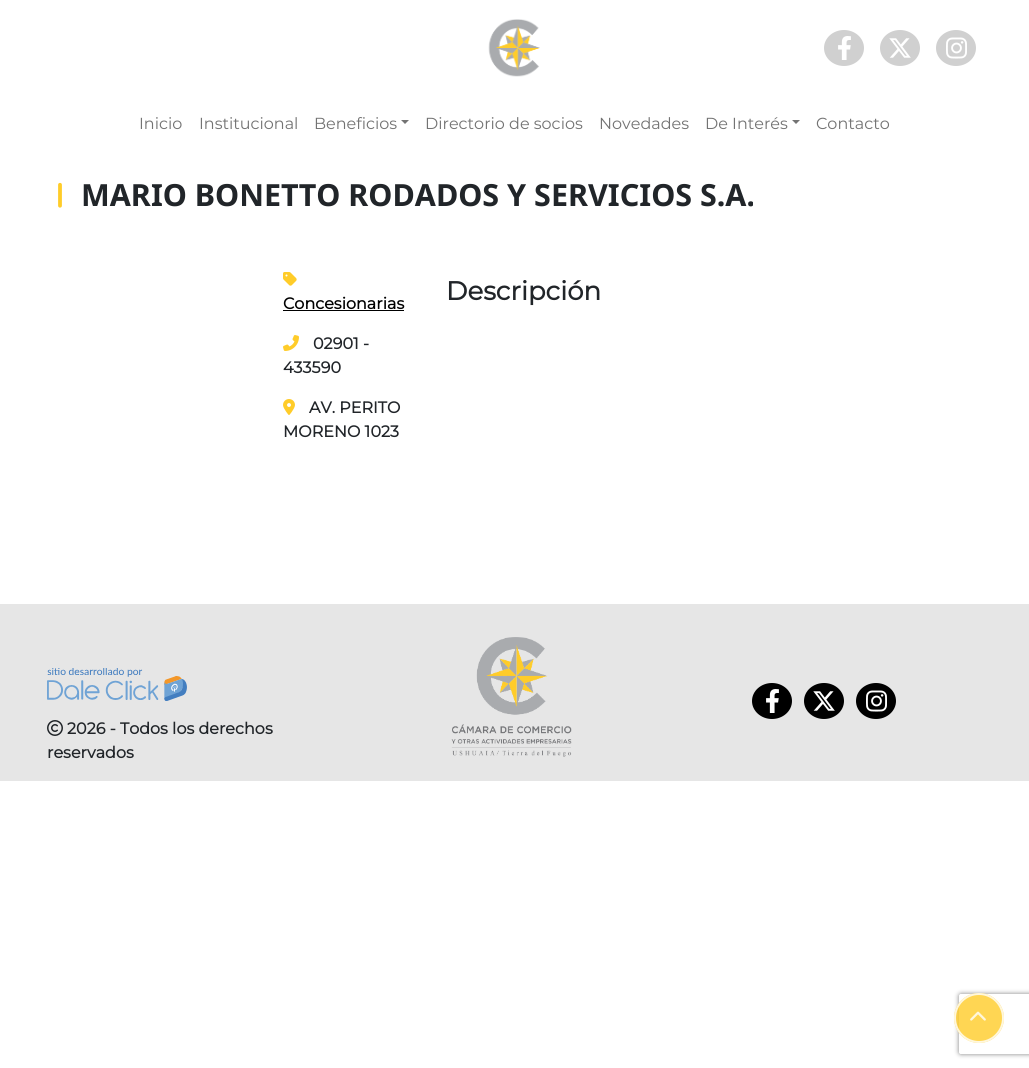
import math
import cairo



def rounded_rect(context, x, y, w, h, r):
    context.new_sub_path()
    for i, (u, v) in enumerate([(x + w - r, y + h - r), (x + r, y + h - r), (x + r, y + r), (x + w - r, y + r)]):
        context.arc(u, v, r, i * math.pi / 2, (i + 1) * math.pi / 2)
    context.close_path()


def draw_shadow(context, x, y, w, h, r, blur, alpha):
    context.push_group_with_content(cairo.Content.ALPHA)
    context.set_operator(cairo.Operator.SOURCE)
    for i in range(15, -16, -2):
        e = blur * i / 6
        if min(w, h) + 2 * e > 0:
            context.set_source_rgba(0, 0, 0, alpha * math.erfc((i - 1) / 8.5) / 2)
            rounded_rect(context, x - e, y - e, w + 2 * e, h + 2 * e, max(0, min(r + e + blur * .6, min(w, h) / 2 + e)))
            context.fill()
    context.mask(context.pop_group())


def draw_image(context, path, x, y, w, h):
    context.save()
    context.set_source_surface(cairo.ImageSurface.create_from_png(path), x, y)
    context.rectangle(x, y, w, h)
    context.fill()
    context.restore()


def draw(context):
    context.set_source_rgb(1, 1, 1)
    context.paint()
    draw_image(context, "images/1.png", 488, 19, 52, 58)
    context.set_source_rgb(208 / 255, 208 / 255, 208 / 255)
    context.new_path()
    context.move_to(844, 30)
    context.curve_to(855, 30, 864, 38, 864, 48)
    context.curve_to(864, 58, 855, 66, 844, 66)
    context.curve_to(833, 66, 824, 58, 824, 48)
    context.curve_to(824, 38, 833, 30, 844, 30)
    context.close_path()
    context.fill()
    draw_image(context, "images/2.png", 838, 36, 13, 24)
    context.new_path()
    context.move_to(900, 30)
    context.curve_to(911, 30, 920, 38, 920, 48)
    context.curve_to(920, 58, 911, 66, 900, 66)
    context.curve_to(889, 66, 880, 58, 880, 48)
    context.curve_to(880, 38, 889, 30, 900, 30)
    context.close_path()
    context.fill()
    draw_image(context, "images/3.png", 889, 38, 22, 20)
    context.new_path()
    context.move_to(956, 30)
    context.curve_to(967, 30, 976, 38, 976, 48)
    context.curve_to(976, 58, 967, 66, 956, 66)
    context.curve_to(945, 66, 936, 58, 936, 48)
    context.curve_to(936, 38, 945, 30, 956, 30)
    context.close_path()
    context.fill()
    draw_image(context, "images/4.png", 946, 37, 21, 22)
    context.set_source_rgb(115 / 255, 115 / 255, 115 / 255)
    context.new_path()
    context.move_to(401, 120)
    context.line_to(409, 120)
    context.line_to(405, 124)
    context.close_path()
    context.fill()
    context.new_path()
    context.move_to(792, 120)
    context.line_to(800, 120)
    context.line_to(796, 124)
    context.close_path()
    context.fill()
    context.save()
    context.set_fill_rule(cairo.FillRule.EVEN_ODD)
    context.new_path()
    context.move_to(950, 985)
    context.line_to(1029, 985)
    context.line_to(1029, 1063)
    context.line_to(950, 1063)
    context.close_path()
    context.move_to(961, 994)
    context.line_to(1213, 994)
    context.curve_to(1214, 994, 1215, 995, 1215, 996)
    context.line_to(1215, 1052)
    context.curve_to(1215, 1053, 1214, 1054, 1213, 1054)
    context.line_to(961, 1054)
    context.curve_to(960, 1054, 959, 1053, 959, 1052)
    context.line_to(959, 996)
    context.curve_to(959, 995, 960, 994, 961, 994)
    context.close_path()
    context.clip()
    context.set_source_rgb(128 / 255, 128 / 255, 128 / 255)
    draw_shadow(context, 959, 994, 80, 60, 2, 2.5, 1)
    context.restore()
    context.set_source_rgba(1, 204 / 255, 41 / 255, 0.8)
    context.arc(979, 1018, 25, 0, 2 * math.pi)
    context.fill()
    context.arc(979, 1018, 24, 0, 2 * math.pi)
    context.set_source_rgba(1, 1, 1, 0.8)
    context.stroke()
    draw_image(context, "images/5.png", 970, 1011, 16, 10)
    draw_image(context, "images/6.png", 58, 182, 4, 26)
    draw_image(context, "images/7.png", 283, 272, 14, 14)
    context.set_source_rgb(0, 0, 0)
    context.rectangle(283, 310, 121, 1)
    context.fill()
    draw_image(context, "images/8.png", 283, 335, 16, 16)
    draw_image(context, "images/9.png", 283, 399, 12, 16)
    context.set_source_rgb(230 / 255, 230 / 255, 230 / 255)
    context.rectangle(0, 604, 1029, 177)
    context.fill()
    draw_image(context, "images/10.png", 451, 637, 121, 120)
    context.set_source_rgb(0, 0, 0)
    context.new_path()
    context.move_to(772, 683)
    context.curve_to(783, 683, 792, 691, 792, 701)
    context.curve_to(792, 711, 783, 719, 772, 719)
    context.curve_to(761, 719, 752, 711, 752, 701)
    context.curve_to(752, 691, 761, 683, 772, 683)
    context.close_path()
    context.fill()
    draw_image(context, "images/11.png", 766, 689, 13, 24)
    context.new_path()
    context.move_to(824, 683)
    context.curve_to(835, 683, 844, 691, 844, 701)
    context.curve_to(844, 711, 835, 719, 824, 719)
    context.curve_to(813, 719, 804, 711, 804, 701)
    context.curve_to(804, 691, 813, 683, 824, 683)
    context.close_path()
    context.fill()
    draw_image(context, "images/12.png", 813, 691, 22, 20)
    context.new_path()
    context.move_to(876, 683)
    context.curve_to(887, 683, 896, 691, 896, 701)
    context.curve_to(896, 711, 887, 719, 876, 719)
    context.curve_to(865, 719, 856, 711, 856, 701)
    context.curve_to(856, 691, 865, 683, 876, 683)
    context.close_path()
    context.fill()
    draw_image(context, "images/13.png", 866, 690, 21, 22)
    draw_image(context, "images/14.png", 47, 668, 140, 33)
    draw_image(context, "images/15.png", 47, 720, 16, 16)
    context.select_font_face("Montserrat Thin")
    context.set_font_size(16)
    context.set_source_rgb(115 / 255, 115 / 255, 115 / 255)
    context.move_to(139, 129)
    context.show_text("Inicio")
    context.move_to(199, 129)
    context.show_text("Institucional")
    context.move_to(314, 129)
    context.show_text("Beneficios")
    context.move_to(425, 129)
    context.show_text("Directorio de socios")
    context.move_to(599, 129)
    context.show_text("Novedades")
    context.move_to(705, 129)
    context.show_text("De Interés")
    context.move_to(816, 129)
    context.show_text("Contacto")
    context.select_font_face("Noto Sans", cairo.FontSlant.NORMAL, cairo.FontWeight.BOLD)
    context.set_font_size(30.5)
    context.set_source_rgb(33 / 255, 37 / 255, 41 / 255)
    context.move_to(81, 206)
    context.show_text("MARIO BONETTO RODADOS Y SERVICIOS S.A.")
    context.select_font_face("Montserrat", cairo.FontSlant.NORMAL, cairo.FontWeight.BOLD)
    context.set_font_size(26)
    context.move_to(446, 300)
    context.show_text("Descripción")
    context.set_font_size(16)
    context.set_source_rgb(0, 0, 0)
    context.move_to(283, 309)
    context.show_text("Concesionarias")
    context.set_source_rgb(33 / 255, 37 / 255, 41 / 255)
    context.move_to(313, 349)
    context.show_text("02901 -")
    context.move_to(283, 373)
    context.show_text("433590")
    context.move_to(309, 413)
    context.show_text("AV. PERITO")
    context.move_to(283, 437)
    context.show_text("MORENO 1023")
    context.move_to(67, 734)
    context.show_text("2026 - Todos los derechos")
    context.move_to(47, 758)
    context.show_text("reservados")


surface = cairo.ImageSurface(cairo.Format.RGB24, 1029, 1068)
context = cairo.Context(surface)
options = cairo.FontOptions()
options.set_hint_metrics(cairo.HintMetrics.OFF)
options.set_hint_style(cairo.HintStyle.NONE)
context.set_font_options(options)
context.set_miter_limit(4)
draw(context)
surface.write_to_png("out.png")
